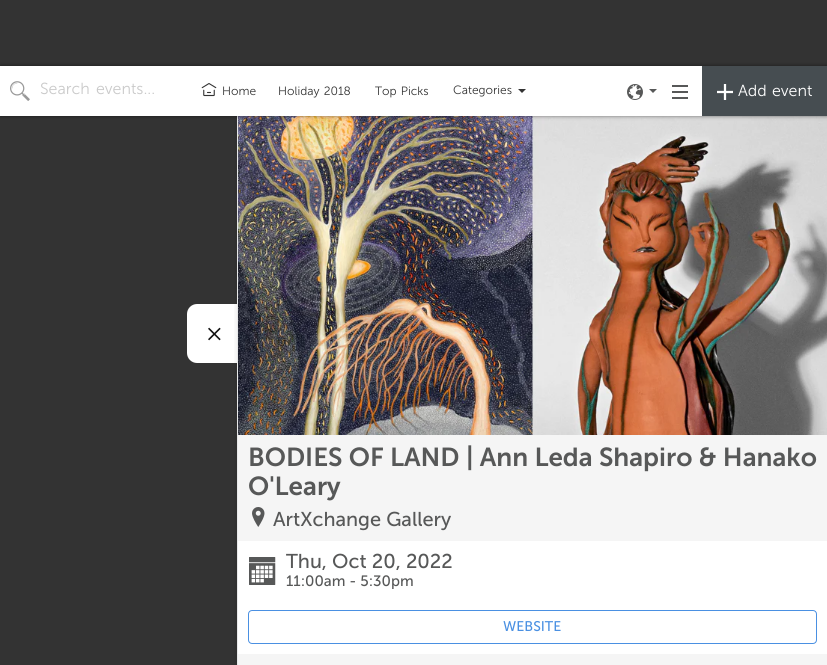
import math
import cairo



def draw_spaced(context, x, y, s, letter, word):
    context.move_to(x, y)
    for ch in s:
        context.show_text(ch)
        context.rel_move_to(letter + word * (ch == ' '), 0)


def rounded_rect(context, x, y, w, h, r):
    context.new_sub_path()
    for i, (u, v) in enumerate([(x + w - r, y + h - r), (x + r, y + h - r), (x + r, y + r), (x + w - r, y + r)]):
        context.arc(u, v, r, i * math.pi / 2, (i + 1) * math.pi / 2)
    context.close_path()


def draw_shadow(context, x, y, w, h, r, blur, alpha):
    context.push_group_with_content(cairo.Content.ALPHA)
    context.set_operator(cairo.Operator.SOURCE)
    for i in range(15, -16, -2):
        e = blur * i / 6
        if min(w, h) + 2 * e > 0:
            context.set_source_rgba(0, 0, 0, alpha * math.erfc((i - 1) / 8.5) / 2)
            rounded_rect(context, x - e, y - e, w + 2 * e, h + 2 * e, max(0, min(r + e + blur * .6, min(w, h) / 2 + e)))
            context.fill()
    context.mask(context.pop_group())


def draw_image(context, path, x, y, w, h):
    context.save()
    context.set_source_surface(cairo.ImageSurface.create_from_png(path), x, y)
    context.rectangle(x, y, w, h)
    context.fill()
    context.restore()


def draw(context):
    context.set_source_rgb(51 / 255, 51 / 255, 51 / 255)
    context.paint()
    context.set_source_rgb(245 / 255, 245 / 255, 245 / 255)
    context.rectangle(238, 654, 589, 11)
    context.fill()
    context.rectangle(238, 435, 589, 106)
    context.fill()
    context.set_source_rgb(1, 1, 1)
    context.new_path()
    context.move_to(197, 304)
    context.line_to(237, 304)
    context.line_to(237, 363)
    context.line_to(197, 363)
    context.curve_to(191.5, 363, 187, 358.5, 187, 353)
    context.line_to(187, 314)
    context.curve_to(187, 308.5, 191.5, 304, 197, 304)
    context.close_path()
    context.fill()
    context.save()
    context.rectangle(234, 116, 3, 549)
    context.clip()
    context.set_source_rgb(0, 0, 0)
    draw_shadow(context, 235, 75, 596, 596, 0, 2, 0.06)
    context.restore()
    context.set_source_rgb(232 / 255, 233 / 255, 234 / 255)
    context.rectangle(237, 116, 1, 549)
    context.fill()
    draw_image(context, "images/7.png", 238, 116, 589, 319)
    context.set_source_rgb(0, 0, 0)
    draw_shadow(context, 0, 66, 827, 50, 0, 2, 0.5)
    context.set_source_rgb(1, 1, 1)
    context.rectangle(0, 66, 702, 50)
    context.fill()
    draw_image(context, "images/1.png", 10, 81, 20, 20)
    draw_image(context, "images/2.png", 201, 83, 16, 14)
    context.set_source_rgb(51 / 255, 51 / 255, 51 / 255)
    context.new_path()
    context.move_to(518, 89)
    context.line_to(526, 89)
    context.line_to(522, 93)
    context.close_path()
    context.fill()
    draw_image(context, "images/3.png", 627, 84, 16, 16)
    context.set_source_rgb(87 / 255, 88 / 255, 88 / 255)
    context.new_path()
    context.move_to(649, 89)
    context.line_to(657, 89)
    context.line_to(653, 93)
    context.close_path()
    context.fill()
    draw_image(context, "images/4.png", 672, 85, 16, 14)
    context.set_source_rgb(70 / 255, 77 / 255, 81 / 255)
    context.rectangle(702, 66, 125, 50)
    context.fill()
    draw_image(context, "images/5.png", 717, 84, 16, 16)
    draw_image(context, "images/6.png", 208, 327, 13, 14)
    draw_image(context, "images/8.png", 252, 507, 13, 20)
    context.set_source_rgb(1, 1, 1)
    context.rectangle(238, 541, 589, 113)
    context.fill()
    draw_image(context, "images/9.png", 249, 557, 27, 28)
    rounded_rect(context, 248.5, 610.5, 568, 33, 3.5)
    context.set_source_rgb(74 / 255, 144 / 255, 226 / 255)
    context.set_line_width(1)
    context.stroke()
    context.select_font_face("Museo Sans Light")
    context.set_font_size(16)
    context.set_source_rgb(202 / 255, 202 / 255, 202 / 255)
    draw_spaced(context, 40, 94, "Search events...", 0, 2)
    context.set_font_size(12)
    context.set_source_rgb(51 / 255, 51 / 255, 51 / 255)
    context.move_to(222, 95)
    context.show_text("Home")
    draw_spaced(context, 278, 95, "Holiday 2018", 0, 1)
    draw_spaced(context, 375, 95, "Top Picks", 0, 1)
    context.move_to(453, 94)
    context.show_text("Categories")
    context.set_font_size(16)
    context.set_source_rgb(1, 1, 1)
    draw_spaced(context, 738, 96, "Add event", 0, 1)
    context.select_font_face("Museo Sans SemiBold")
    context.set_font_size(26)
    context.set_source_rgb(87 / 255, 88 / 255, 88 / 255)
    context.move_to(248, 466)
    context.show_text("BODIES OF LAND | Ann Leda Shapiro & Hanako")
    context.move_to(248, 495)
    context.show_text("O'Leary")
    context.select_font_face("Museo Sans")
    context.set_font_size(20)
    context.move_to(273, 526)
    context.show_text("ArtXchange Gallery")
    context.move_to(286, 568)
    context.show_text("Thu, Oct 20, 2022")
    context.set_font_size(15)
    context.move_to(286, 586)
    context.show_text("11:00am - 5:30pm")
    context.set_font_size(14)
    context.set_source_rgb(74 / 255, 144 / 255, 226 / 255)
    context.move_to(503, 631)
    context.show_text("WEBSITE")


surface = cairo.ImageSurface(cairo.Format.RGB24, 827, 665)
context = cairo.Context(surface)
options = cairo.FontOptions()
options.set_hint_metrics(cairo.HintMetrics.OFF)
options.set_hint_style(cairo.HintStyle.NONE)
context.set_font_options(options)
context.set_miter_limit(4)
draw(context)
surface.write_to_png("out.png")
